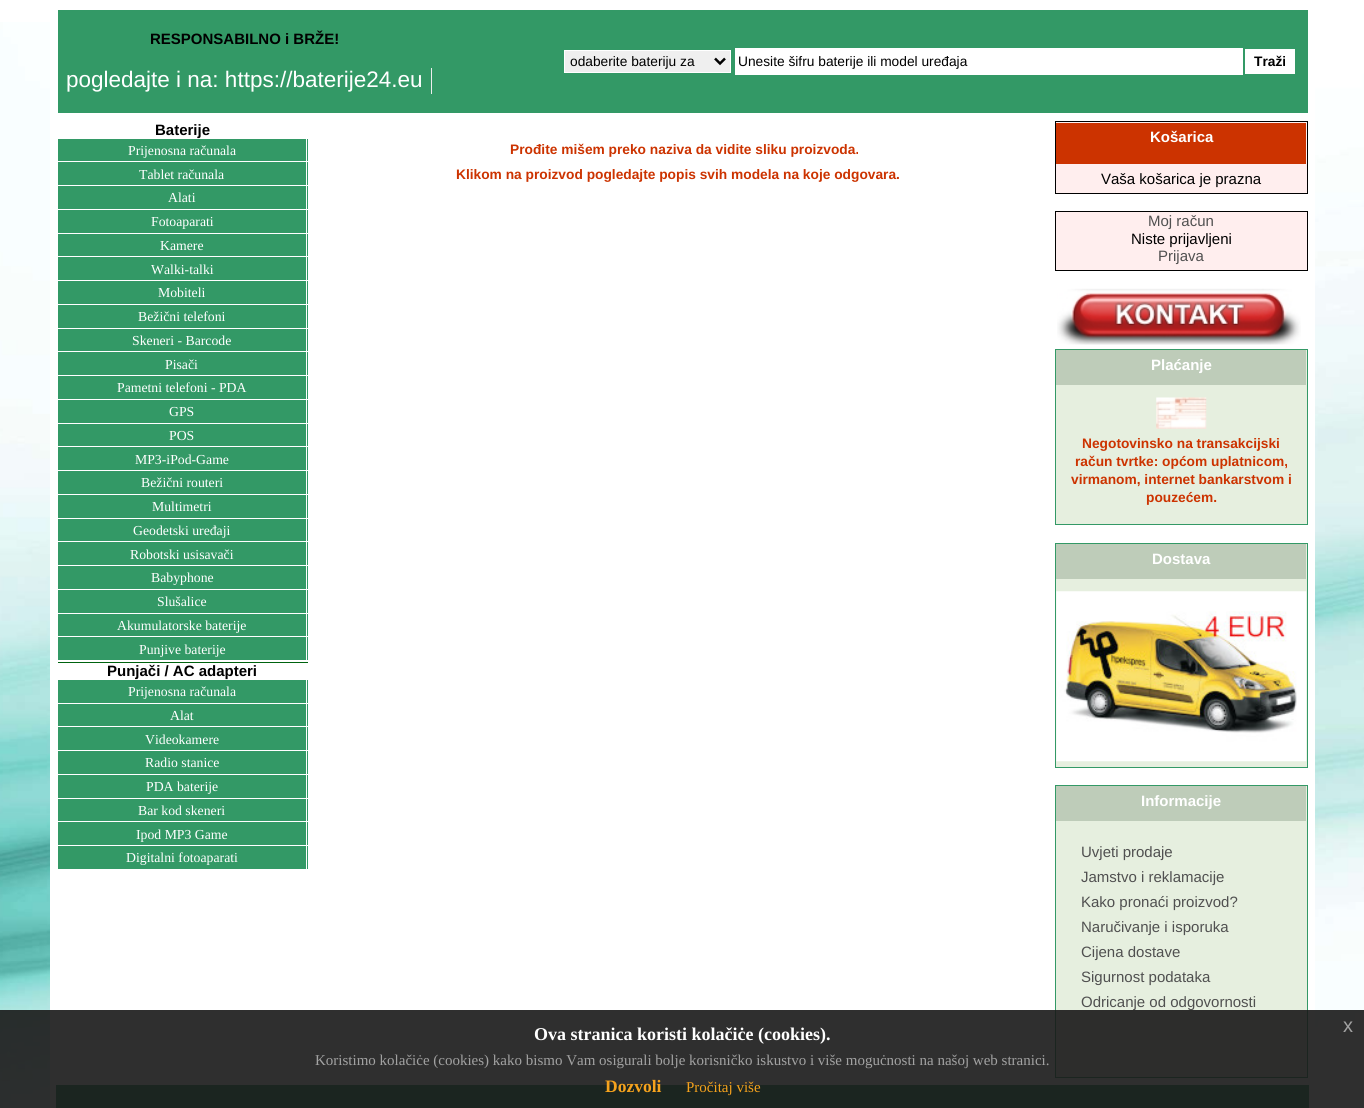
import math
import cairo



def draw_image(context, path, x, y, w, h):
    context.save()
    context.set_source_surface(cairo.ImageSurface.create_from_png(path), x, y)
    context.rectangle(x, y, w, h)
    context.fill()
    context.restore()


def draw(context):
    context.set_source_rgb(1, 1, 1)
    context.paint()
    draw_image(context, "images/1.png", 0, 22, 1364, 1086)
    context.set_source_rgb(1, 1, 1)
    context.rectangle(50, 22, 1265, 1086)
    context.fill()
    context.set_source_rgb(51 / 255, 153 / 255, 102 / 255)
    context.rectangle(58, 10, 1250, 103)
    context.fill()
    context.set_source_rgb(238 / 255, 238 / 255, 238 / 255)
    context.rectangle(431, 68, 1, 26)
    context.fill()
    context.set_source_rgb(239 / 255, 239 / 255, 239 / 255)
    context.rectangle(564.5, 50.5, 166, 22)
    context.fill_preserve()
    context.set_source_rgb(1, 1, 1)
    context.set_line_width(1)
    context.stroke()
    context.new_path()
    context.move_to(715, 58.5)
    context.line_to(720, 63.5)
    context.line_to(725, 58.5)
    context.set_source_rgb(0, 0, 0)
    context.set_line_width(2.5)
    context.stroke()
    context.set_source_rgb(1, 1, 1)
    context.rectangle(735, 48, 508, 27)
    context.fill()
    context.rectangle(1245, 49, 50, 25)
    context.fill()
    context.set_source_rgb(0, 99 / 255, 15 / 255)
    context.rectangle(58, 662, 250, 1)
    context.fill()
    context.set_source_rgb(51 / 255, 153 / 255, 102 / 255)
    context.rectangle(58, 139, 250, 46)
    context.fill()
    context.set_source_rgb(1, 1, 1)
    context.rectangle(306, 139, 1, 47)
    context.fill()
    context.rectangle(58, 161, 250, 1)
    context.fill()
    context.set_source_rgb(51 / 255, 153 / 255, 102 / 255)
    context.rectangle(58, 186, 250, 23)
    context.fill()
    context.set_source_rgb(1, 1, 1)
    context.rectangle(306, 186, 1, 24)
    context.fill()
    context.set_source_rgb(51 / 255, 153 / 255, 102 / 255)
    context.rectangle(58, 210, 250, 23)
    context.fill()
    context.set_source_rgb(1, 1, 1)
    context.rectangle(306, 210, 1, 24)
    context.fill()
    context.set_source_rgb(51 / 255, 153 / 255, 102 / 255)
    context.rectangle(58, 234, 250, 46)
    context.fill()
    context.set_source_rgb(1, 1, 1)
    context.rectangle(306, 234, 1, 47)
    context.fill()
    context.rectangle(58, 256, 250, 1)
    context.fill()
    context.set_source_rgb(51 / 255, 153 / 255, 102 / 255)
    context.rectangle(58, 281, 250, 23)
    context.fill()
    context.set_source_rgb(1, 1, 1)
    context.rectangle(306, 281, 1, 24)
    context.fill()
    context.set_source_rgb(51 / 255, 153 / 255, 102 / 255)
    context.rectangle(58, 305, 250, 23)
    context.fill()
    context.set_source_rgb(1, 1, 1)
    context.rectangle(306, 305, 1, 24)
    context.fill()
    context.set_source_rgb(51 / 255, 153 / 255, 102 / 255)
    context.rectangle(58, 329, 250, 46)
    context.fill()
    context.set_source_rgb(1, 1, 1)
    context.rectangle(306, 329, 1, 47)
    context.fill()
    context.rectangle(58, 351, 250, 1)
    context.fill()
    context.set_source_rgb(51 / 255, 153 / 255, 102 / 255)
    context.rectangle(58, 376, 250, 23)
    context.fill()
    context.set_source_rgb(1, 1, 1)
    context.rectangle(306, 376, 1, 24)
    context.fill()
    context.set_source_rgb(51 / 255, 153 / 255, 102 / 255)
    context.rectangle(58, 400, 250, 23)
    context.fill()
    context.set_source_rgb(1, 1, 1)
    context.rectangle(306, 400, 1, 24)
    context.fill()
    context.set_source_rgb(51 / 255, 153 / 255, 102 / 255)
    context.rectangle(58, 424, 250, 46)
    context.fill()
    context.set_source_rgb(1, 1, 1)
    context.rectangle(306, 424, 1, 47)
    context.fill()
    context.rectangle(58, 446, 250, 1)
    context.fill()
    context.set_source_rgb(51 / 255, 153 / 255, 102 / 255)
    context.rectangle(58, 471, 250, 23)
    context.fill()
    context.set_source_rgb(1, 1, 1)
    context.rectangle(306, 471, 1, 24)
    context.fill()
    context.set_source_rgb(51 / 255, 153 / 255, 102 / 255)
    context.rectangle(58, 495, 250, 23)
    context.fill()
    context.set_source_rgb(1, 1, 1)
    context.rectangle(306, 495, 1, 24)
    context.fill()
    context.set_source_rgb(51 / 255, 153 / 255, 102 / 255)
    context.rectangle(58, 519, 250, 46)
    context.fill()
    context.set_source_rgb(1, 1, 1)
    context.rectangle(306, 519, 1, 47)
    context.fill()
    context.rectangle(58, 541, 250, 1)
    context.fill()
    context.set_source_rgb(51 / 255, 153 / 255, 102 / 255)
    context.rectangle(58, 566, 250, 23)
    context.fill()
    context.set_source_rgb(1, 1, 1)
    context.rectangle(306, 566, 1, 24)
    context.fill()
    context.set_source_rgb(51 / 255, 153 / 255, 102 / 255)
    context.rectangle(58, 590, 250, 23)
    context.fill()
    context.set_source_rgb(1, 1, 1)
    context.rectangle(306, 590, 1, 24)
    context.fill()
    context.set_source_rgb(51 / 255, 153 / 255, 102 / 255)
    context.rectangle(58, 614, 250, 46)
    context.fill()
    context.set_source_rgb(1, 1, 1)
    context.rectangle(306, 614, 1, 47)
    context.fill()
    context.rectangle(58, 636, 250, 1)
    context.fill()
    context.set_source_rgb(51 / 255, 153 / 255, 102 / 255)
    context.rectangle(58, 680, 250, 23)
    context.fill()
    context.set_source_rgb(1, 1, 1)
    context.rectangle(306, 680, 1, 24)
    context.fill()
    context.set_source_rgb(51 / 255, 153 / 255, 102 / 255)
    context.rectangle(58, 704, 250, 46)
    context.fill()
    context.set_source_rgb(1, 1, 1)
    context.rectangle(306, 704, 1, 47)
    context.fill()
    context.rectangle(58, 726, 250, 1)
    context.fill()
    context.set_source_rgb(51 / 255, 153 / 255, 102 / 255)
    context.rectangle(58, 751, 250, 23)
    context.fill()
    context.set_source_rgb(1, 1, 1)
    context.rectangle(306, 751, 1, 24)
    context.fill()
    context.set_source_rgb(51 / 255, 153 / 255, 102 / 255)
    context.rectangle(58, 775, 250, 23)
    context.fill()
    context.set_source_rgb(1, 1, 1)
    context.rectangle(306, 775, 1, 24)
    context.fill()
    context.set_source_rgb(51 / 255, 153 / 255, 102 / 255)
    context.rectangle(58, 799, 250, 46)
    context.fill()
    context.set_source_rgb(1, 1, 1)
    context.rectangle(306, 799, 1, 47)
    context.fill()
    context.rectangle(58, 821, 250, 1)
    context.fill()
    context.set_source_rgb(51 / 255, 153 / 255, 102 / 255)
    context.rectangle(58, 846, 250, 23)
    context.fill()
    context.set_source_rgb(1, 1, 1)
    context.rectangle(306, 846, 1, 24)
    context.fill()
    context.set_source_rgb(1, 238 / 255, 238 / 255)
    context.rectangle(1055.5, 121.5, 252, 72)
    context.fill_preserve()
    context.set_source_rgb(0, 0, 0)
    context.set_line_width(1)
    context.stroke()
    context.set_source_rgb(204 / 255, 51 / 255, 0)
    context.rectangle(1056, 123, 250, 41)
    context.fill()
    context.set_source_rgb(1, 238 / 255, 238 / 255)
    context.rectangle(1055.5, 211.5, 252, 59)
    context.fill_preserve()
    context.set_source_rgb(0, 0, 0)
    context.stroke()
    draw_image(context, "images/2.png", 1057, 288, 244, 57)
    context.set_source_rgb(230 / 255, 239 / 255, 223 / 255)
    context.rectangle(1055.5, 349.5, 252, 175)
    context.fill_preserve()
    context.set_source_rgb(51 / 255, 153 / 255, 102 / 255)
    context.stroke()
    context.set_source_rgb(190 / 255, 204 / 255, 185 / 255)
    context.rectangle(1056, 350, 250, 35)
    context.fill()
    draw_image(context, "images/3.png", 1156, 397, 51, 32)
    context.set_source_rgb(230 / 255, 239 / 255, 223 / 255)
    context.rectangle(1055.5, 543.5, 252, 224)
    context.fill_preserve()
    context.set_source_rgb(51 / 255, 153 / 255, 102 / 255)
    context.stroke()
    context.set_source_rgb(190 / 255, 204 / 255, 185 / 255)
    context.rectangle(1056, 544, 250, 35)
    context.fill()
    draw_image(context, "images/4.png", 1056, 591, 251, 171)
    context.set_source_rgb(230 / 255, 239 / 255, 223 / 255)
    context.rectangle(1055.5, 785.5, 252, 292)
    context.fill_preserve()
    context.set_source_rgb(51 / 255, 153 / 255, 102 / 255)
    context.stroke()
    context.set_source_rgb(190 / 255, 204 / 255, 185 / 255)
    context.rectangle(1056, 786, 250, 35)
    context.fill()
    context.set_source_rgb(51 / 255, 153 / 255, 102 / 255)
    context.rectangle(56, 1085, 1253, 23)
    context.fill()
    context.select_font_face("Liberation Sans", cairo.FontSlant.NORMAL, cairo.FontWeight.BOLD)
    context.set_font_size(15)
    context.set_source_rgb(0, 0, 0)
    context.move_to(150, 44)
    context.show_text("RESPONSABILNO i BRŽE!")
    context.select_font_face("Liberation Sans")
    context.set_font_size(22.5)
    context.set_source_rgb(1, 1, 1)
    context.move_to(66, 87)
    context.show_text("pogledajte i na: https://baterije24.eu")
    context.set_font_size(13.75)
    context.set_source_rgb(0, 0, 0)
    context.move_to(570, 66)
    context.show_text("odaberite bateriju za")
    context.move_to(738, 66)
    context.show_text("Unesite šifru baterije ili model uređaja")
    context.select_font_face("Liberation Sans", cairo.FontSlant.NORMAL, cairo.FontWeight.BOLD)
    context.move_to(1254, 66)
    context.show_text("Traži")
    context.set_font_size(15)
    context.move_to(155, 135)
    context.show_text("Baterije")
    context.select_font_face("Liberation Serif")
    context.set_font_size(13.75)
    context.set_source_rgb(1, 1, 1)
    context.move_to(128, 155)
    context.show_text("Prijenosna računala")
    context.move_to(139, 179)
    context.show_text("Tablet računala")
    context.move_to(168, 202)
    context.show_text("Alati")
    context.move_to(151, 226)
    context.show_text("Fotoaparati")
    context.move_to(160, 250)
    context.show_text("Kamere")
    context.move_to(151, 274)
    context.show_text("Walki-talki")
    context.move_to(158, 297)
    context.show_text("Mobiteli")
    context.move_to(138, 321)
    context.show_text("Bežični telefoni")
    context.move_to(132, 345)
    context.show_text("Skeneri - Barcode")
    context.move_to(165, 369)
    context.show_text("Pisači")
    context.move_to(117, 392)
    context.show_text("Pametni telefoni - PDA")
    context.move_to(169, 416)
    context.show_text("GPS")
    context.move_to(169, 440)
    context.show_text("POS")
    context.move_to(135, 464)
    context.show_text("MP3-iPod-Game")
    context.move_to(141, 487)
    context.show_text("Bežični routeri")
    context.move_to(152, 511)
    context.show_text("Multimetri")
    context.move_to(133, 535)
    context.show_text("Geodetski uređaji")
    context.move_to(130, 559)
    context.show_text("Robotski usisavači")
    context.move_to(151, 582)
    context.show_text("Babyphone")
    context.move_to(157, 606)
    context.show_text("Slušalice")
    context.move_to(117, 630)
    context.show_text("Akumulatorske baterije")
    context.move_to(139, 654)
    context.show_text("Punjive baterije")
    context.select_font_face("Liberation Sans", cairo.FontSlant.NORMAL, cairo.FontWeight.BOLD)
    context.set_font_size(15)
    context.set_source_rgb(0, 0, 0)
    context.move_to(107, 676)
    context.show_text("Punjači / AC adapteri")
    context.select_font_face("Liberation Serif")
    context.set_font_size(13.75)
    context.set_source_rgb(1, 1, 1)
    context.move_to(128, 696)
    context.show_text("Prijenosna računala")
    context.move_to(170, 720)
    context.show_text("Alat")
    context.move_to(145, 744)
    context.show_text("Videokamere")
    context.move_to(145, 767)
    context.show_text("Radio stanice")
    context.move_to(146, 791)
    context.show_text("PDA baterije")
    context.move_to(138, 815)
    context.show_text("Bar kod skeneri")
    context.move_to(136, 839)
    context.show_text("Ipod MP3 Game")
    context.move_to(126, 862)
    context.show_text("Digitalni fotoaparati")
    context.select_font_face("Liberation Sans", cairo.FontSlant.NORMAL, cairo.FontWeight.BOLD)
    context.set_source_rgb(204 / 255, 51 / 255, 0)
    context.move_to(510, 154)
    context.show_text("Prođite mišem preko naziva da vidite sliku proizvoda.")
    context.move_to(456, 179)
    context.show_text("Klikom na proizvod pogledajte popis svih modela na koje odgovara.")
    context.set_font_size(15)
    context.set_source_rgb(1, 1, 1)
    context.move_to(1150, 142)
    context.show_text("Košarica")
    context.select_font_face("Liberation Sans")
    context.set_source_rgb(0, 0, 0)
    context.move_to(1101, 184)
    context.show_text("Vaša košarica je prazna")
    context.set_source_rgb(80 / 255, 80 / 255, 80 / 255)
    context.move_to(1148, 226)
    context.show_text("Moj račun")
    context.set_source_rgb(0, 0, 0)
    context.move_to(1131, 244)
    context.show_text("Niste prijavljeni")
    context.set_source_rgb(80 / 255, 80 / 255, 80 / 255)
    context.move_to(1158, 261)
    context.show_text("Prijava")
    context.select_font_face("Liberation Sans", cairo.FontSlant.NORMAL, cairo.FontWeight.BOLD)
    context.set_source_rgb(1, 1, 1)
    context.move_to(1151, 370)
    context.show_text("Plaćanje")
    context.set_font_size(13.75)
    context.set_source_rgb(204 / 255, 51 / 255, 0)
    context.move_to(1082, 448)
    context.show_text("Negotovinsko na transakcijski")
    context.move_to(1075, 466)
    context.show_text("račun tvrtke: općom uplatnicom,")
    context.move_to(1071, 484)
    context.show_text("virmanom, internet bankarstvom i")
    context.move_to(1146, 502)
    context.show_text("pouzećem.")
    context.set_font_size(15)
    context.set_source_rgb(1, 1, 1)
    context.move_to(1152, 564)
    context.show_text("Dostava")
    context.move_to(1141, 806)
    context.show_text("Informacije")
    context.select_font_face("Liberation Sans")
    context.set_source_rgb(80 / 255, 80 / 255, 80 / 255)
    context.move_to(1081, 857)
    context.show_text("Uvjeti prodaje")
    context.move_to(1081, 882)
    context.show_text("Jamstvo i reklamacije")
    context.move_to(1081, 907)
    context.show_text("Kako pronaći proizvod?")
    context.move_to(1081, 932)
    context.show_text("Naručivanje i isporuka")
    context.move_to(1081, 957)
    context.show_text("Cijena dostave")
    context.move_to(1081, 982)
    context.show_text("Sigurnost podataka")
    context.move_to(1081, 1007)
    context.show_text("Odricanje od odgovornosti")
    context.set_source_rgba(25 / 255, 25 / 255, 25 / 255, 0.9)
    context.rectangle(0, 1010, 1364, 98)
    context.fill()
    context.select_font_face("Liberation Serif", cairo.FontSlant.NORMAL, cairo.FontWeight.BOLD)
    context.set_font_size(18)
    context.set_source_rgb(1, 1, 1)
    context.move_to(534, 1040)
    context.show_text("Ova stranica koristi kolačiċe (cookies).")
    context.select_font_face("Liberation Sans")
    context.set_font_size(20)
    context.set_source_rgb(162 / 255, 162 / 255, 162 / 255)
    context.move_to(1343, 1032)
    context.show_text("x")
    context.select_font_face("Liberation Serif")
    context.set_font_size(15)
    context.move_to(315, 1065)
    context.show_text("Koristimo kolačiċe (cookies) kako bismo Vam osigurali bolje korisničko iskustvo i više moguċnosti na našoj web stranici.")
    context.select_font_face("Liberation Serif", cairo.FontSlant.NORMAL, cairo.FontWeight.BOLD)
    context.set_font_size(17.5)
    context.set_source_rgb(246 / 255, 162 / 255, 29 / 255)
    context.move_to(605, 1092)
    context.show_text("Dozvoli")
    context.select_font_face("Liberation Serif")
    context.set_font_size(15)
    context.move_to(686, 1092)
    context.show_text("Pročitaj više")


surface = cairo.ImageSurface(cairo.Format.RGB24, 1364, 1108)
context = cairo.Context(surface)
options = cairo.FontOptions()
options.set_hint_metrics(cairo.HintMetrics.OFF)
options.set_hint_style(cairo.HintStyle.NONE)
context.set_font_options(options)
context.set_miter_limit(4)
draw(context)
surface.write_to_png("out.png")
